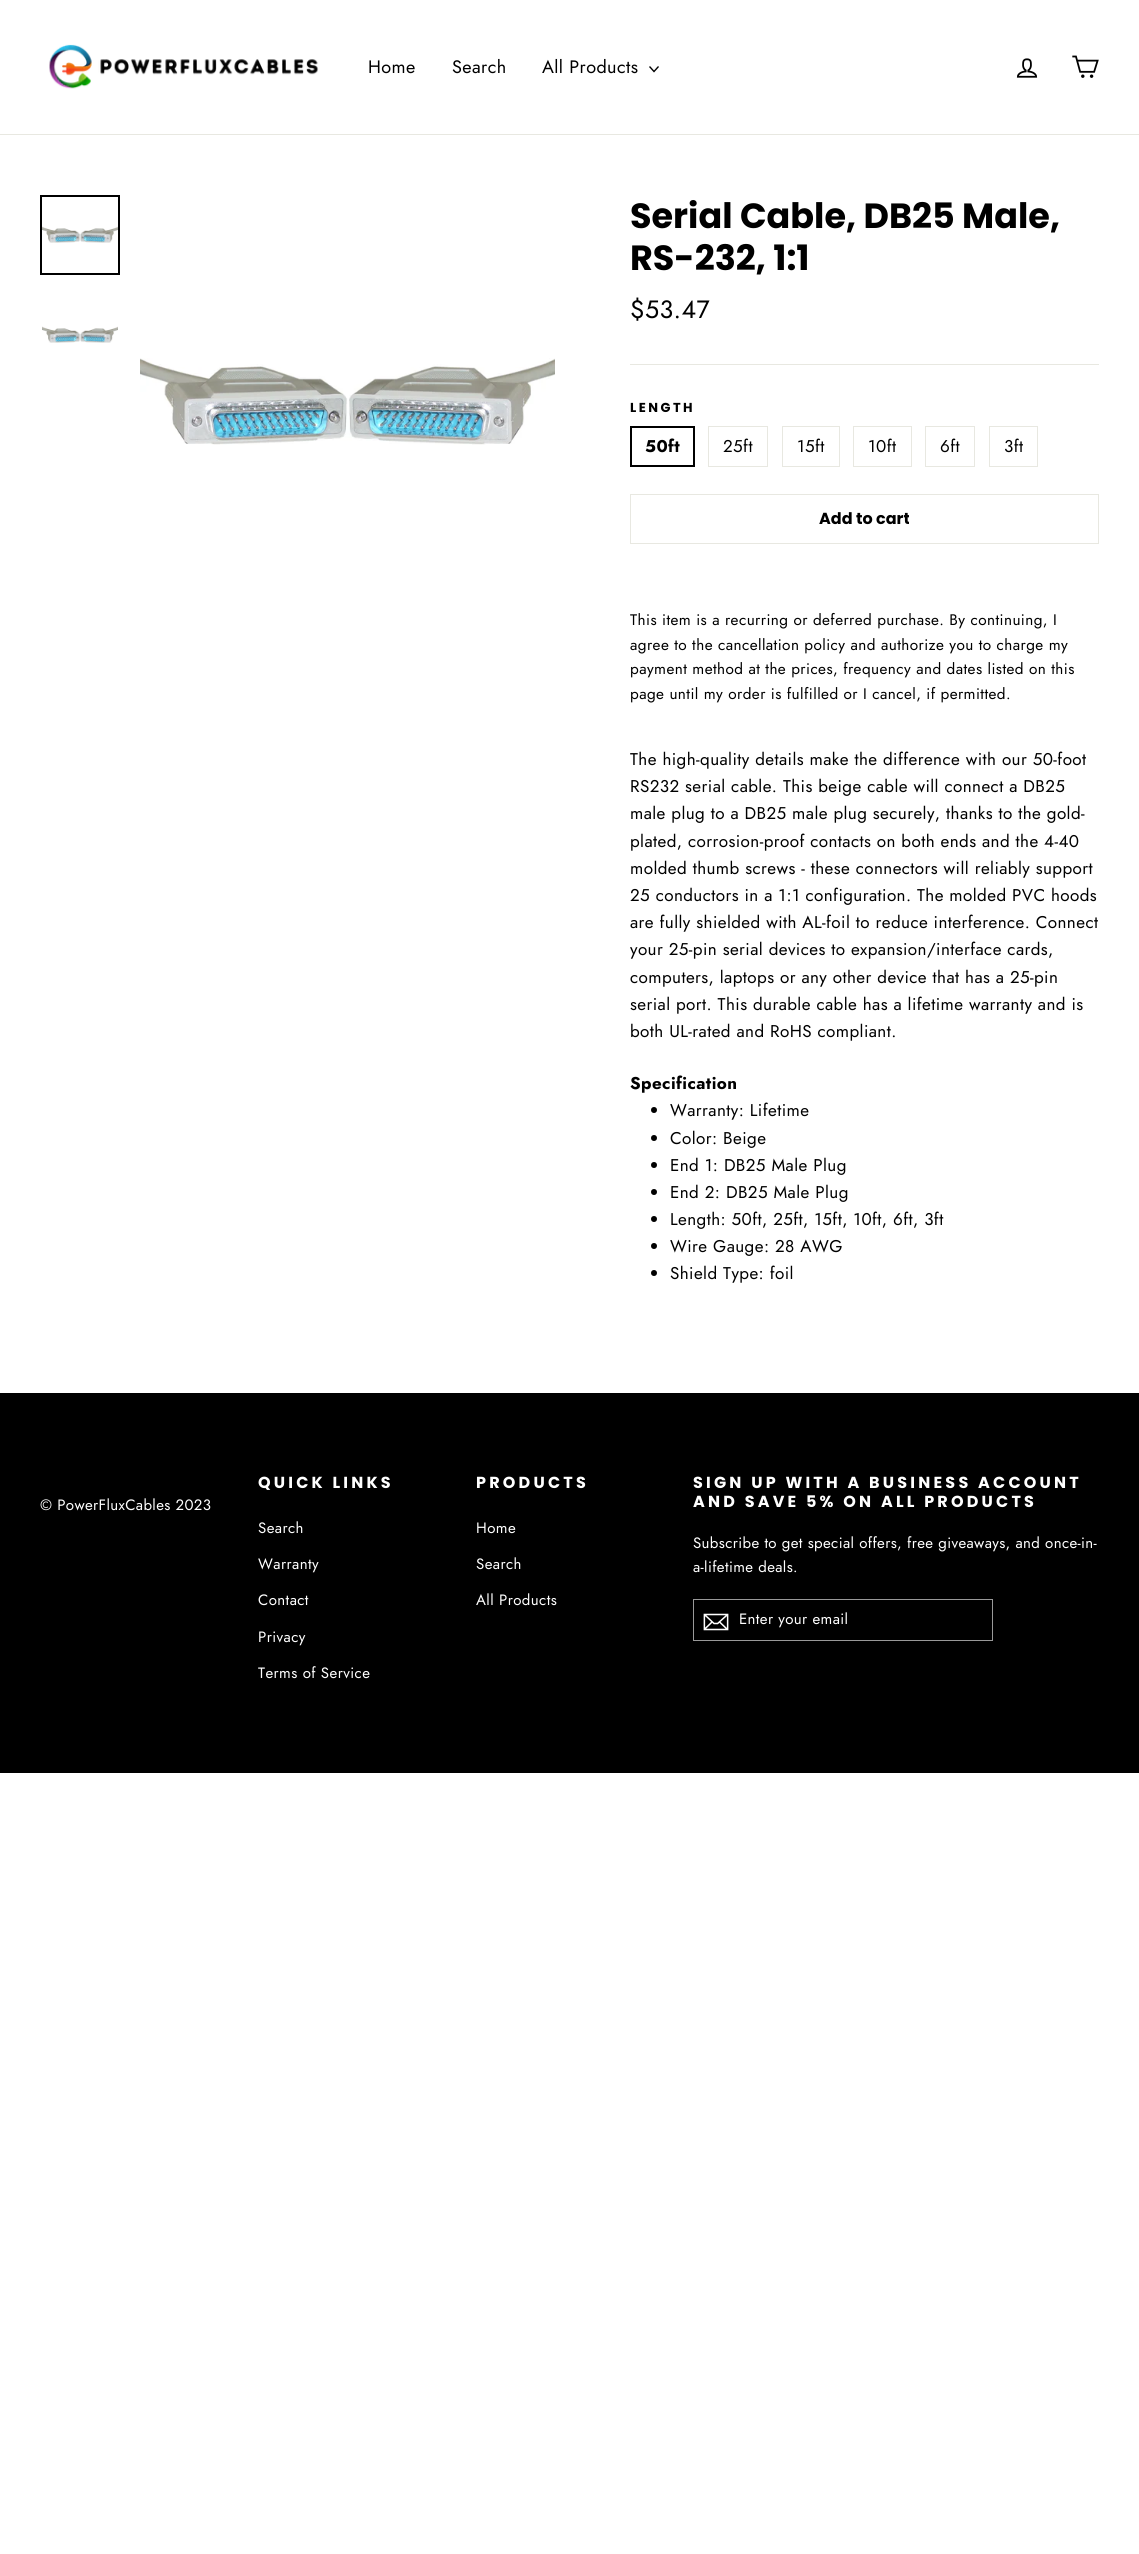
import math
import cairo



def draw_spaced(context, x, y, s, letter, word):
    context.move_to(x, y)
    for ch in s:
        context.show_text(ch)
        context.rel_move_to(letter + word * (ch == ' '), 0)


def draw_image(context, path, x, y, w, h):
    context.save()
    context.set_source_surface(cairo.ImageSurface.create_from_png(path), x, y)
    context.rectangle(x, y, w, h)
    context.fill()
    context.restore()


def draw(context):
    context.set_source_rgb(1, 1, 1)
    context.paint()
    context.set_source_rgb(232 / 255, 232 / 255, 225 / 255)
    context.rectangle(0, 134, 1139, 1)
    context.fill()
    draw_image(context, "images/1.png", 49, 44, 270, 45)
    context.new_path()
    context.move_to(649.5, 66.5)
    context.line_to(654, 71.5)
    context.line_to(658.5, 66.5)
    context.set_source_rgb(0, 0, 0)
    context.set_line_width(1.4)
    context.stroke()
    draw_image(context, "images/2.png", 1016, 58, 22, 20)
    draw_image(context, "images/3.png", 1072, 55, 27, 23)
    context.rectangle(41, 196, 78, 78)
    context.set_line_width(2)
    context.stroke()
    draw_image(context, "images/4.png", 42, 226, 76, 17)
    draw_image(context, "images/5.png", 42, 326, 76, 17)
    draw_image(context, "images/6.png", 140, 358, 415, 87)
    context.set_source_rgb(232 / 255, 232 / 255, 225 / 255)
    context.rectangle(630, 364, 469, 1)
    context.fill()
    context.rectangle(631, 427, 63, 39)
    context.set_source_rgb(0, 0, 0)
    context.stroke()
    context.rectangle(708.5, 426.5, 59, 40)
    context.set_source_rgb(232 / 255, 232 / 255, 225 / 255)
    context.set_line_width(1)
    context.stroke()
    context.rectangle(782.5, 426.5, 57, 40)
    context.stroke()
    context.rectangle(853.5, 426.5, 58, 40)
    context.stroke()
    context.rectangle(925.5, 426.5, 49, 40)
    context.stroke()
    context.rectangle(989.5, 426.5, 48, 40)
    context.stroke()
    context.rectangle(630.5, 494.5, 468, 49)
    context.stroke()
    context.set_source_rgb(0, 0, 0)
    context.arc(654, 1110, 3, 0, 2 * math.pi)
    context.fill()
    context.arc(654, 1138, 3, 0, 2 * math.pi)
    context.fill()
    context.arc(654, 1165, 3, 0, 2 * math.pi)
    context.fill()
    context.arc(654, 1192, 3, 0, 2 * math.pi)
    context.fill()
    context.arc(654, 1219, 3, 0, 2 * math.pi)
    context.fill()
    context.arc(654, 1246, 3, 0, 2 * math.pi)
    context.fill()
    context.arc(654, 1273, 3, 0, 2 * math.pi)
    context.fill()
    context.rectangle(0, 1393, 1139, 380)
    context.fill()
    context.rectangle(693.5, 1599.5, 299, 41)
    context.set_source_rgb(153 / 255, 153 / 255, 153 / 255)
    context.stroke()
    draw_image(context, "images/7.png", 703, 1613, 26, 18)
    context.select_font_face("Jost")
    context.set_font_size(18)
    context.set_source_rgb(0, 0, 0)
    draw_spaced(context, 368, 73, "Home", 0.42, 0)
    draw_spaced(context, 452, 73, "Search", 0.42, 0)
    draw_spaced(context, 542, 73, "All Products", 0.42, 0)
    context.select_font_face("Poppins", cairo.FontSlant.NORMAL, cairo.FontWeight.BOLD)
    context.set_font_size(35)
    context.move_to(630, 228)
    context.show_text("Serial Cable, DB25 Male,")
    context.move_to(630, 270)
    context.show_text("RS-232, 1:1")
    context.select_font_face("Jost")
    context.set_font_size(25)
    draw_spaced(context, 630, 318, "$53.47", 0.42, 0)
    context.select_font_face("Poppins", cairo.FontSlant.NORMAL, cairo.FontWeight.BOLD)
    context.set_font_size(13)
    draw_spaced(context, 630, 412, "LENGTH", 2.5, 0)
    context.select_font_face("Jost", cairo.FontSlant.NORMAL, cairo.FontWeight.BOLD)
    context.set_font_size(17)
    draw_spaced(context, 645, 452, "50ft", 0.42, 0)
    context.select_font_face("Jost")
    draw_spaced(context, 723, 452, "25ft", 0.42, 0)
    draw_spaced(context, 797, 452, "15ft", 0.42, 0)
    draw_spaced(context, 868, 452, "10ft", 0.42, 0)
    draw_spaced(context, 940, 452, "6ft", 0.42, 0)
    draw_spaced(context, 1004, 452, "3ft", 0.42, 0)
    context.select_font_face("Poppins", cairo.FontSlant.NORMAL, cairo.FontWeight.BOLD)
    context.set_font_size(16)
    context.move_to(819, 524)
    context.show_text("Add to cart")
    context.select_font_face("Jost")
    context.set_font_size(15.3)
    draw_spaced(context, 630, 625, "This item is a recurring or deferred purchase. By continuing, I", 0.42, 0)
    draw_spaced(context, 630, 650, "agree to the cancellation policy and authorize you to charge my", 0.42, 0)
    draw_spaced(context, 630, 674, "payment method at the prices, frequency and dates listed on this", 0.42, 0)
    draw_spaced(context, 630, 699, "page until my order is fulfilled or I cancel, if permitted.", 0.42, 0)
    context.set_font_size(17)
    draw_spaced(context, 630, 765, "The high-quality details make the difference with our 50-foot", 0.42, 0)
    draw_spaced(context, 630, 792, "RS232 serial cable. This beige cable will connect a DB25", 0.42, 0)
    draw_spaced(context, 630, 819, "male plug to a DB25 male plug securely, thanks to the gold-", 0.42, 0)
    draw_spaced(context, 630, 847, "plated, corrosion-proof contacts on both ends and the 4-40", 0.42, 0)
    draw_spaced(context, 630, 874, "molded thumb screws - these connectors will reliably support", 0.42, 0)
    draw_spaced(context, 630, 901, "25 conductors in a 1:1 configuration. The molded PVC hoods", 0.42, 0)
    draw_spaced(context, 630, 928, "are fully shielded with AL-foil to reduce interference. Connect", 0.42, 0)
    draw_spaced(context, 630, 955, "your 25-pin serial devices to expansion/interface cards,", 0.42, 0)
    draw_spaced(context, 630, 983, "computers, laptops or any other device that has a 25-pin", 0.42, 0)
    draw_spaced(context, 630, 1010, "serial port. This durable cable has a lifetime warranty and is", 0.42, 0)
    draw_spaced(context, 630, 1037, "both UL-rated and RoHS compliant.", 0.42, 0)
    context.select_font_face("Jost", cairo.FontSlant.NORMAL, cairo.FontWeight.BOLD)
    draw_spaced(context, 630, 1089, "Specification", 0.42, 0)
    context.select_font_face("Jost")
    draw_spaced(context, 670, 1116, "Warranty: Lifetime", 0.42, 0)
    draw_spaced(context, 670, 1144, "Color: Beige", 0.42, 0)
    draw_spaced(context, 670, 1171, "End 1: DB25 Male Plug", 0.42, 0)
    draw_spaced(context, 670, 1198, "End 2: DB25 Male Plug", 0.42, 0)
    draw_spaced(context, 670, 1225, "Length: 50ft, 25ft, 15ft, 10ft, 6ft, 3ft", 0.42, 0)
    draw_spaced(context, 670, 1252, "Wire Gauge: 28 AWG", 0.42, 0)
    draw_spaced(context, 670, 1279, "Shield Type: foil", 0.42, 0)
    context.set_font_size(15)
    context.set_source_rgb(1, 1, 1)
    draw_spaced(context, 40, 1510, "© PowerFluxCables 2023", 0.37, 0)
    context.select_font_face("Poppins", cairo.FontSlant.NORMAL, cairo.FontWeight.BOLD)
    context.set_font_size(16)
    draw_spaced(context, 258, 1488, "QUICK LINKS", 3.2, 0)
    context.select_font_face("Jost")
    context.set_font_size(15)
    draw_spaced(context, 258, 1533, "Search", 0.42, 0)
    draw_spaced(context, 258, 1569, "Warranty", 0.42, 0)
    draw_spaced(context, 258, 1605, "Contact", 0.42, 0)
    draw_spaced(context, 258, 1642, "Privacy", 0.42, 0)
    draw_spaced(context, 258, 1678, "Terms of Service", 0.42, 0)
    context.select_font_face("Poppins", cairo.FontSlant.NORMAL, cairo.FontWeight.BOLD)
    context.set_font_size(16)
    draw_spaced(context, 476, 1488, "PRODUCTS", 3.2, 0)
    context.select_font_face("Jost")
    context.set_font_size(15)
    draw_spaced(context, 476, 1533, "Home", 0.42, 0)
    draw_spaced(context, 476, 1569, "Search", 0.42, 0)
    draw_spaced(context, 476, 1605, "All Products", 0.42, 0)
    context.select_font_face("Poppins", cairo.FontSlant.NORMAL, cairo.FontWeight.BOLD)
    context.set_font_size(16)
    draw_spaced(context, 693, 1488, "SIGN UP WITH A BUSINESS ACCOUNT", 3.2, 0)
    draw_spaced(context, 693, 1507, "AND SAVE 5% ON ALL PRODUCTS", 3.2, 0)
    context.select_font_face("Jost")
    context.set_font_size(15)
    draw_spaced(context, 693, 1548, "Subscribe to get special offers, free giveaways, and once-in-", 0.37, 0)
    draw_spaced(context, 693, 1572, "a-lifetime deals.", 0.37, 0)
    draw_spaced(context, 739, 1624, "Enter your email", 0.37, 0)


surface = cairo.ImageSurface(cairo.Format.RGB24, 1139, 2554)
context = cairo.Context(surface)
options = cairo.FontOptions()
options.set_hint_metrics(cairo.HintMetrics.OFF)
options.set_hint_style(cairo.HintStyle.NONE)
context.set_font_options(options)
context.set_miter_limit(4)
draw(context)
surface.write_to_png("out.png")
